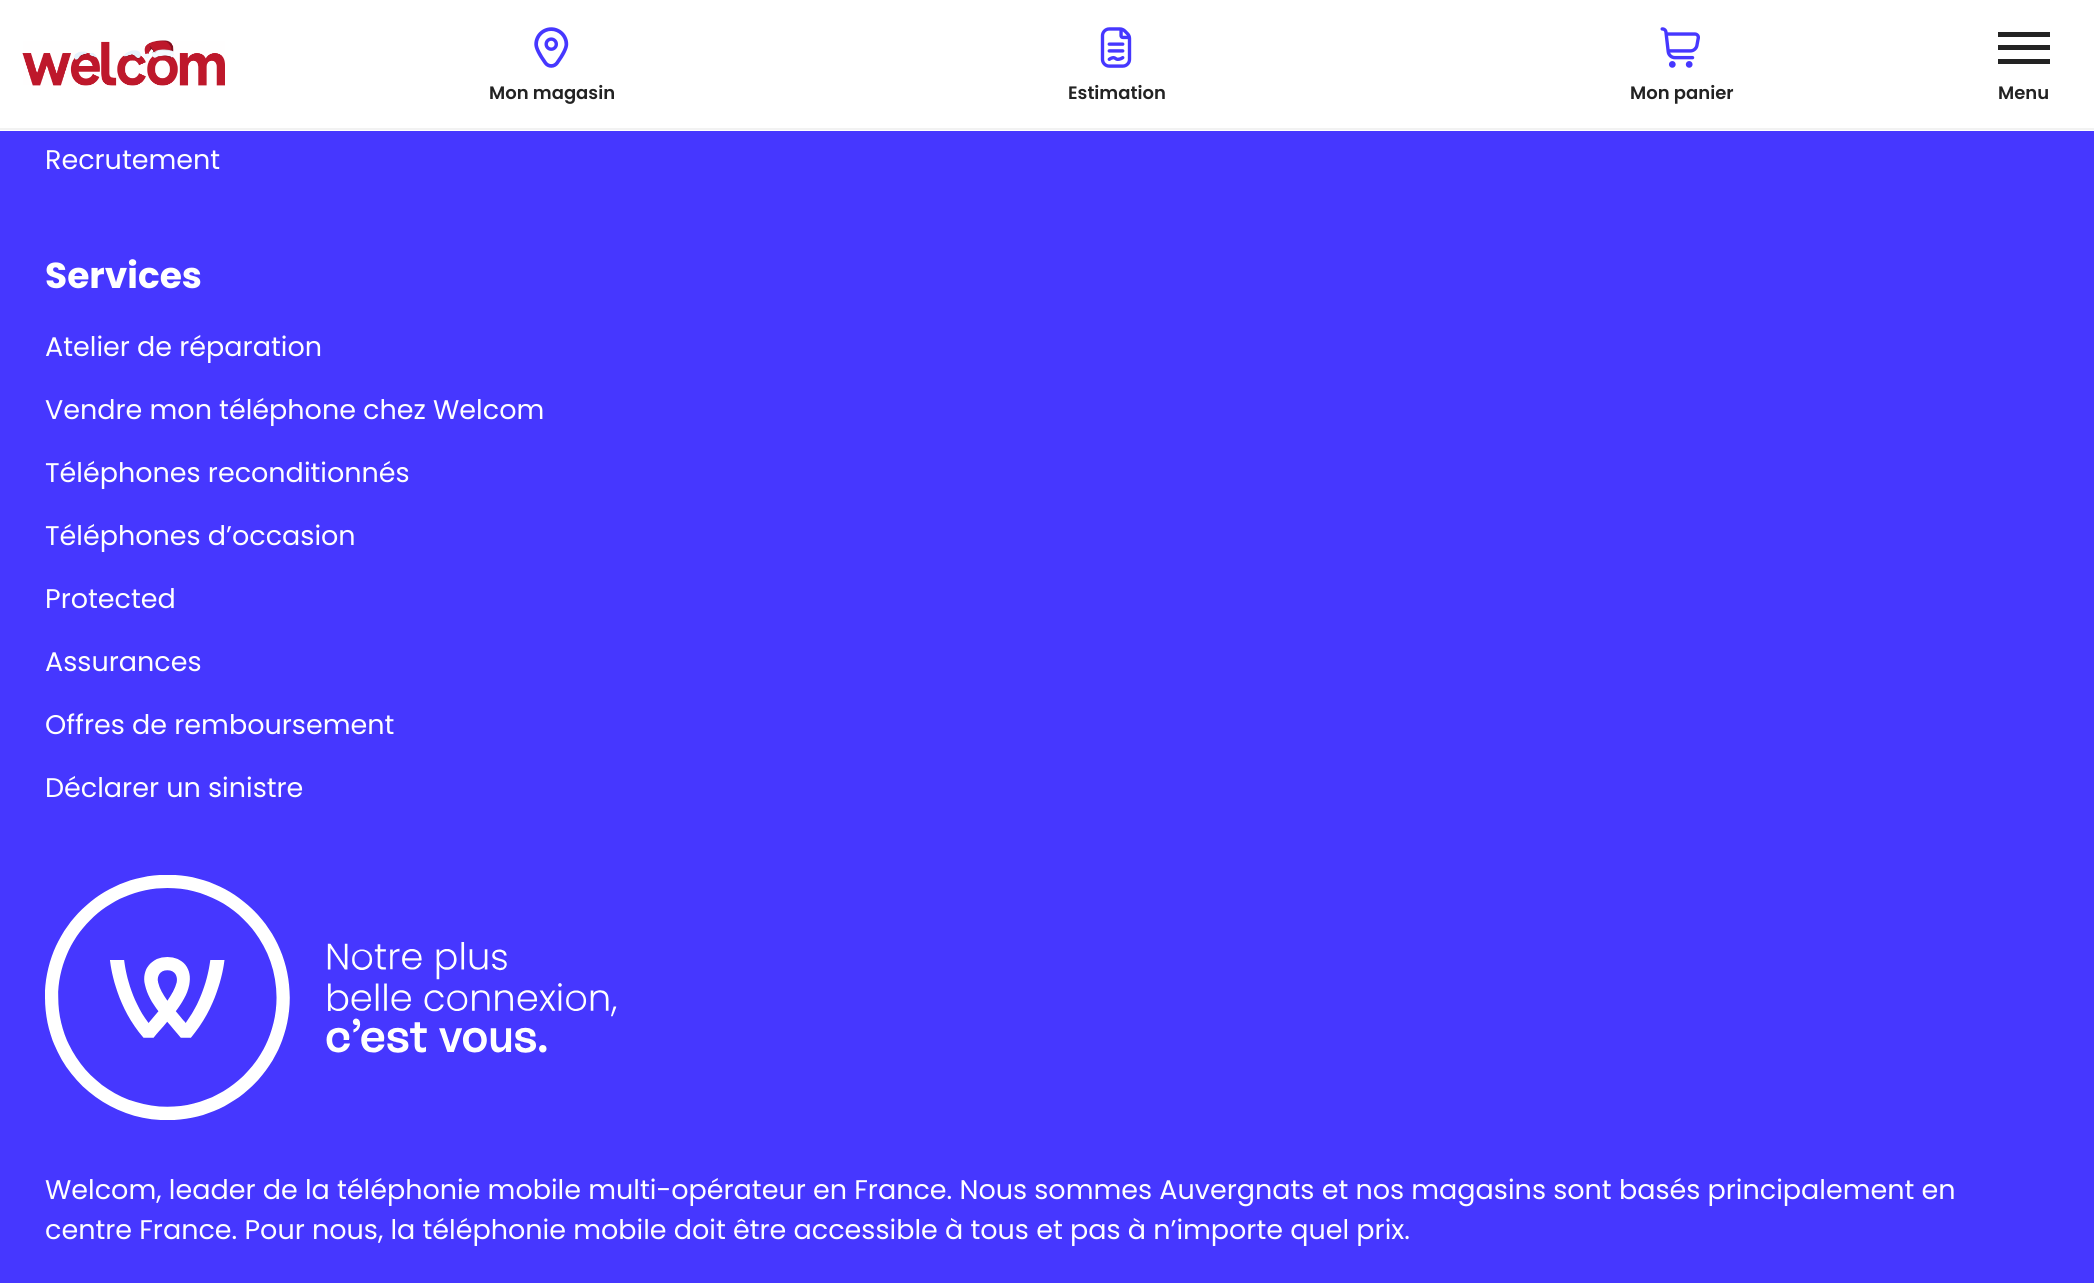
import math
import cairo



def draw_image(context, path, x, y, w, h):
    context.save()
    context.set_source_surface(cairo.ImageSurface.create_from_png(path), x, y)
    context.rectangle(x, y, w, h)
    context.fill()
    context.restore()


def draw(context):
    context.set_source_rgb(70 / 255, 55 / 255, 1)
    context.paint()
    context.set_source_rgb(1, 1, 1)
    context.rectangle(0, 0, 2094, 131)
    context.fill()
    context.set_source_rgb(242 / 255, 242 / 255, 242 / 255)
    context.rectangle(0, 128, 2094, 2)
    context.fill()
    draw_image(context, "images/1.png", 22, 40, 203, 46)
    draw_image(context, "images/2.png", 534, 27, 35, 41)
    draw_image(context, "images/3.png", 1100, 27, 32, 41)
    draw_image(context, "images/4.png", 1660, 27, 40, 41)
    context.set_source_rgb(35 / 255, 35 / 255, 35 / 255)
    context.rectangle(1998, 32, 52, 5)
    context.fill()
    context.rectangle(1998, 45, 52, 5)
    context.fill()
    context.rectangle(1998, 59, 52, 5)
    context.fill()
    draw_image(context, "images/5.png", 45, 875, 572, 245)
    context.select_font_face("Poppins SemiBold")
    context.set_font_size(18)
    context.move_to(489, 99)
    context.show_text("Mon magasin")
    context.move_to(1068, 99)
    context.show_text("Estimation")
    context.move_to(1630, 99)
    context.show_text("Mon panier")
    context.move_to(1998, 99)
    context.show_text("Menu")
    context.select_font_face("Poppins")
    context.set_font_size(27)
    context.set_source_rgb(1, 1, 1)
    context.move_to(45, 169)
    context.show_text("Recrutement")
    context.select_font_face("Poppins", cairo.FontSlant.NORMAL, cairo.FontWeight.BOLD)
    context.set_font_size(36)
    context.move_to(45, 288)
    context.show_text("Services")
    context.select_font_face("Poppins")
    context.set_font_size(27)
    context.move_to(45, 356)
    context.show_text("Atelier de réparation")
    context.move_to(45, 419)
    context.show_text("Vendre mon téléphone chez Welcom")
    context.move_to(45, 482)
    context.show_text("Téléphones reconditionnés")
    context.move_to(45, 545)
    context.show_text("Téléphones d’occasion")
    context.move_to(45, 608)
    context.show_text("Protected")
    context.move_to(45, 671)
    context.show_text("Assurances")
    context.move_to(45, 734)
    context.show_text("Offres de remboursement")
    context.move_to(45, 797)
    context.show_text("Déclarer un sinistre")
    context.move_to(45, 1199)
    context.show_text("Welcom, leader de la téléphonie mobile multi-opérateur en France. Nous sommes Auvergnats et nos magasins sont basés principalement en")
    context.move_to(45, 1239)
    context.show_text("centre France. Pour nous, la téléphonie mobile doit être accessible à tous et pas à n’importe quel prix.")


surface = cairo.ImageSurface(cairo.Format.RGB24, 2094, 1283)
context = cairo.Context(surface)
options = cairo.FontOptions()
options.set_hint_metrics(cairo.HintMetrics.OFF)
options.set_hint_style(cairo.HintStyle.NONE)
context.set_font_options(options)
context.set_miter_limit(4)
draw(context)
surface.write_to_png("out.png")
